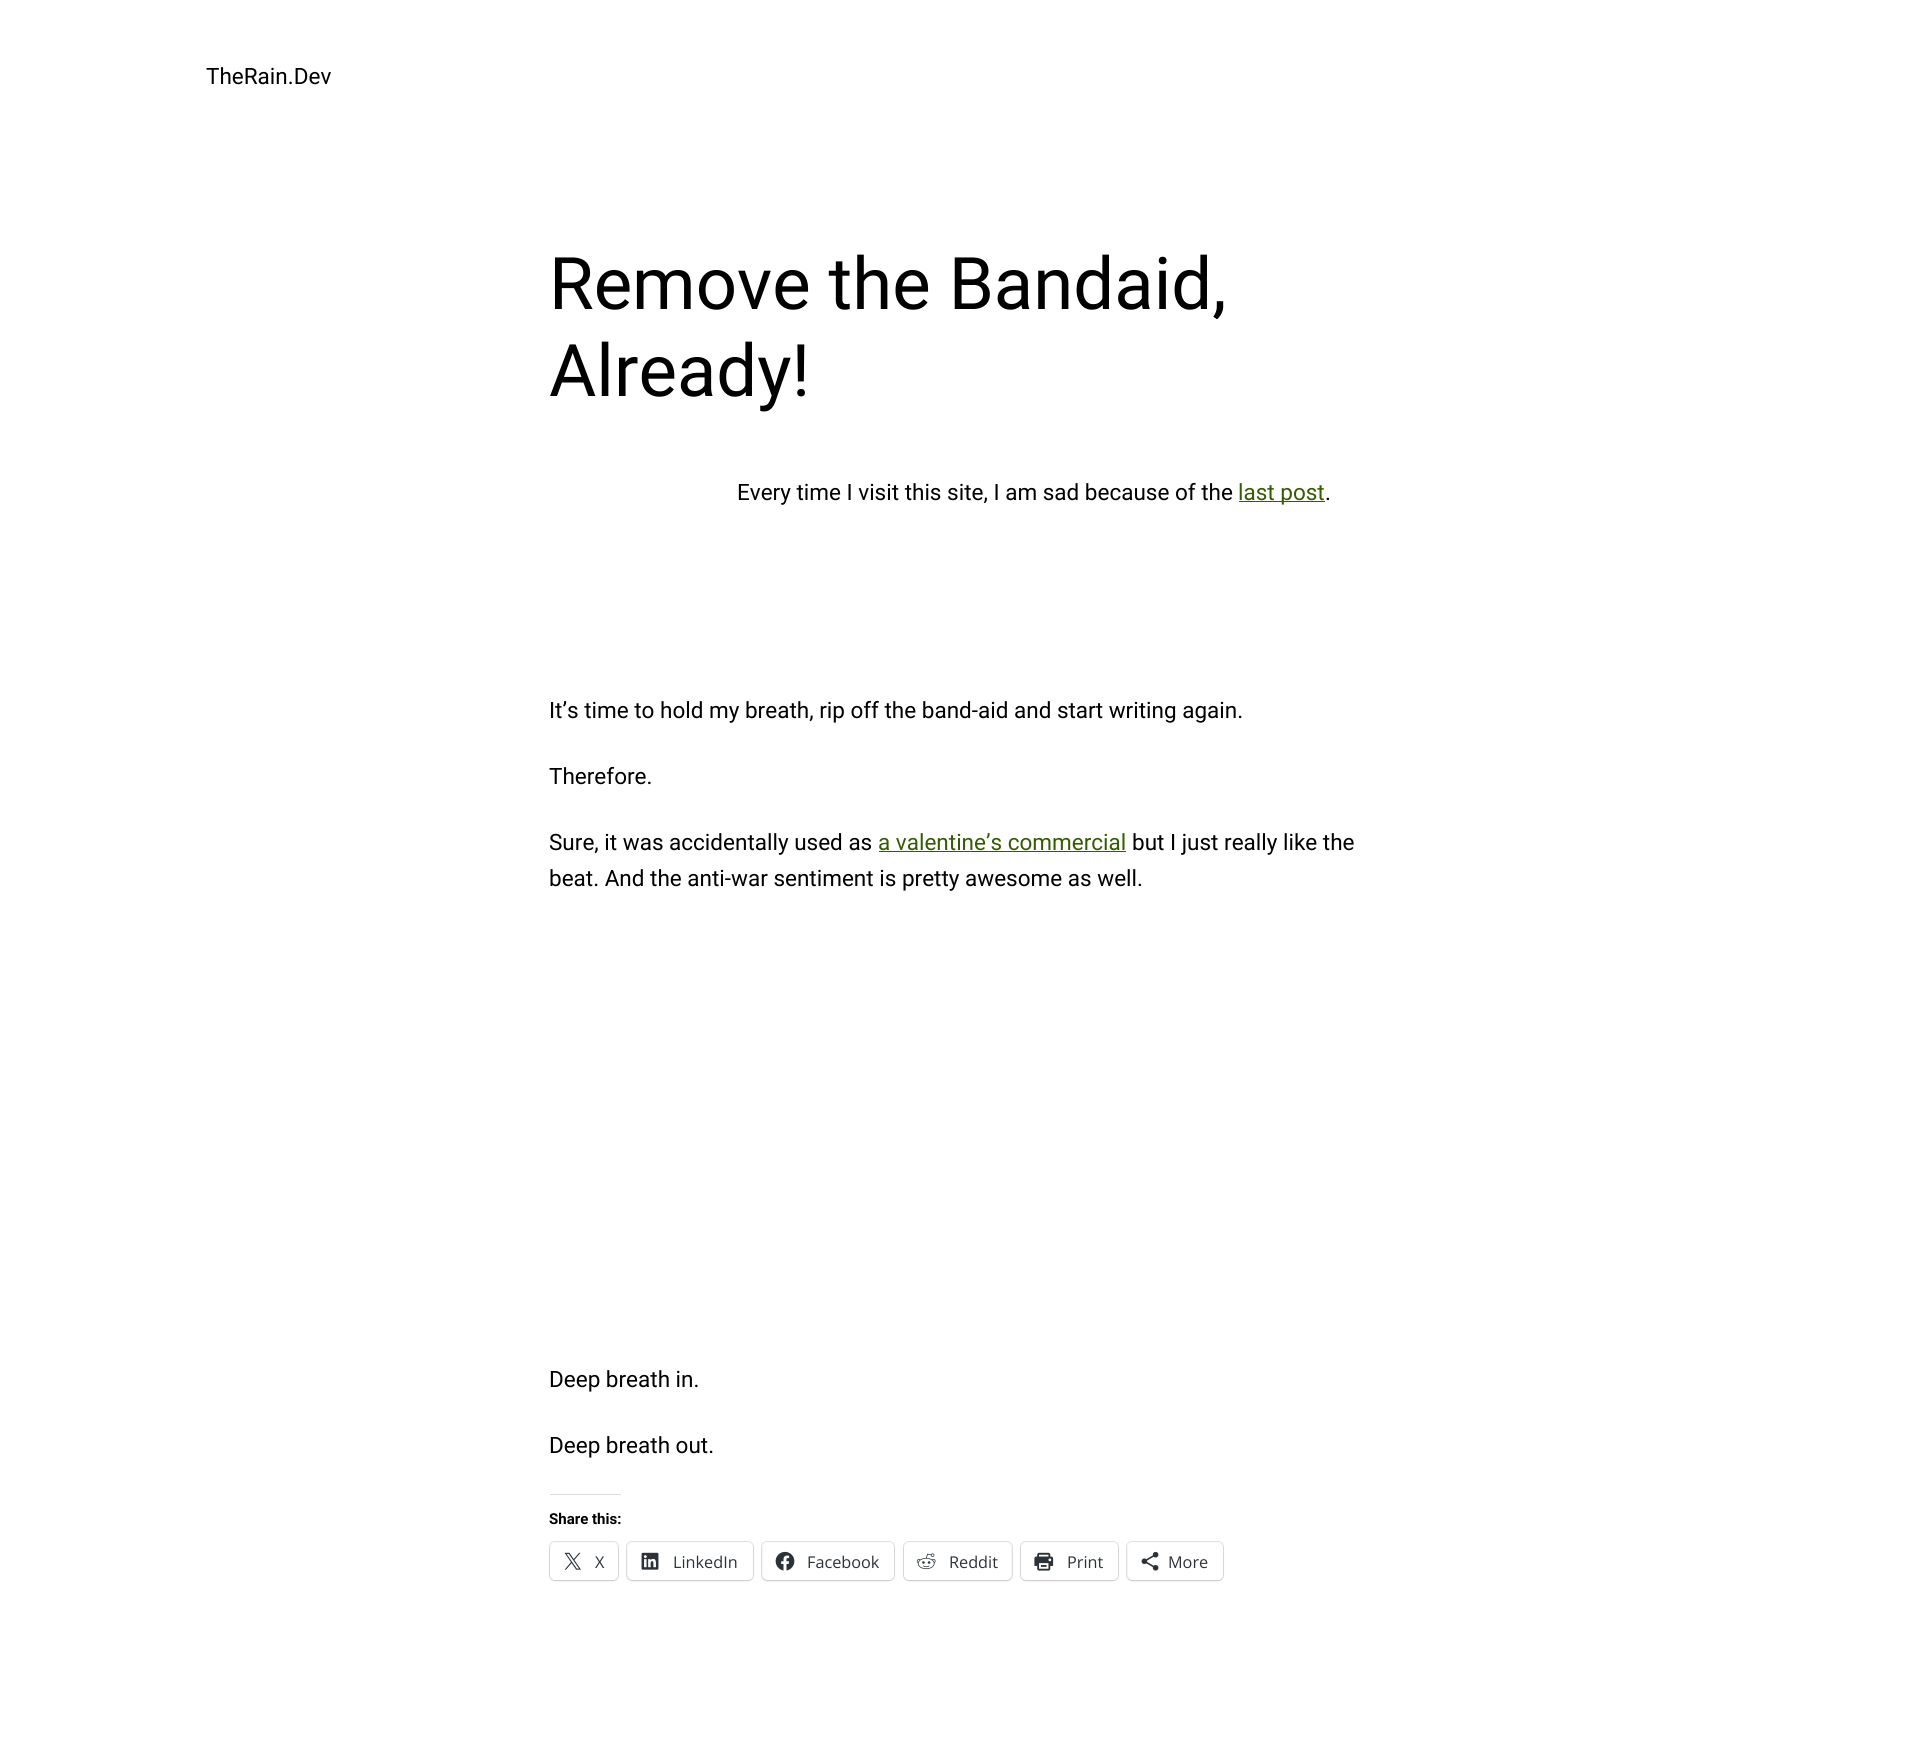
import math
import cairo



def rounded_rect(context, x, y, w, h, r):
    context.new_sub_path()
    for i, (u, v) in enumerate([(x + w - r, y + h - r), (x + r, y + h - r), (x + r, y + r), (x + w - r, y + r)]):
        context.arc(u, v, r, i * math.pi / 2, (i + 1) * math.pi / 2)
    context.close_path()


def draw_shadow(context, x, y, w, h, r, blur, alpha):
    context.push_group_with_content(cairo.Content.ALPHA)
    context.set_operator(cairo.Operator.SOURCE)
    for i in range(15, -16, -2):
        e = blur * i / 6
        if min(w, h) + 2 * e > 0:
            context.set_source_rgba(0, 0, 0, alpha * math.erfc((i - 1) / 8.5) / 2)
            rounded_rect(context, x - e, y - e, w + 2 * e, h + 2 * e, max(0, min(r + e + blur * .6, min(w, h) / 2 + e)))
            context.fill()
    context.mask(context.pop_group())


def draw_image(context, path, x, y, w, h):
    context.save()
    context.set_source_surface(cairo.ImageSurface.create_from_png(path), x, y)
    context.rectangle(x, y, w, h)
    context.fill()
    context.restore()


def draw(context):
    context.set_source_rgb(1, 1, 1)
    context.paint()
    context.set_source_rgb(52 / 255, 92 / 255, 0)
    context.rectangle(1239, 501, 86, 1)
    context.fill()
    context.rectangle(879, 851, 247, 1)
    context.fill()
    context.set_source_rgb(220 / 255, 220 / 255, 222 / 255)
    context.rectangle(550, 1494, 71, 1)
    context.fill()
    rounded_rect(context, 549.5, 1541.5, 69, 39, 5.5)
    context.set_source_rgb(224 / 255, 224 / 255, 224 / 255)
    context.set_line_width(1)
    context.stroke()
    context.set_source_rgb(0, 0, 0)
    draw_shadow(context, 550, 1544, 68, 37, 5, 1, 0.12)
    context.set_source_rgb(1, 1, 1)
    rounded_rect(context, 550, 1543, 68, 37, 5)
    context.fill()
    draw_image(context, "images/1.png", 564, 1552, 17, 18)
    rounded_rect(context, 626.5, 1541.5, 127, 39, 5.5)
    context.set_source_rgb(224 / 255, 224 / 255, 224 / 255)
    context.stroke()
    context.set_source_rgb(0, 0, 0)
    draw_shadow(context, 628, 1544, 125, 37, 5, 1, 0.12)
    context.set_source_rgb(1, 1, 1)
    rounded_rect(context, 628, 1543, 125, 37, 5)
    context.fill()
    draw_image(context, "images/2.png", 641, 1552, 18, 18)
    rounded_rect(context, 761.5, 1541.5, 133, 39, 5.5)
    context.set_source_rgb(224 / 255, 224 / 255, 224 / 255)
    context.stroke()
    context.set_source_rgb(0, 0, 0)
    draw_shadow(context, 763, 1544, 131, 37, 5, 1, 0.12)
    context.set_source_rgb(1, 1, 1)
    rounded_rect(context, 763, 1543, 131, 37, 5)
    context.fill()
    draw_image(context, "images/3.png", 775, 1551, 20, 20)
    rounded_rect(context, 903.5, 1541.5, 109, 39, 5.5)
    context.set_source_rgb(224 / 255, 224 / 255, 224 / 255)
    context.stroke()
    context.set_source_rgb(0, 0, 0)
    draw_shadow(context, 904, 1544, 107, 37, 5, 1, 0.12)
    context.set_source_rgb(1, 1, 1)
    rounded_rect(context, 904, 1543, 107, 37, 5)
    context.fill()
    draw_image(context, "images/4.png", 916, 1553, 20, 17)
    rounded_rect(context, 1020.5, 1541.5, 98, 39, 5.5)
    context.set_source_rgb(224 / 255, 224 / 255, 224 / 255)
    context.stroke()
    context.set_source_rgb(0, 0, 0)
    draw_shadow(context, 1021, 1544, 97, 37, 5, 1, 0.12)
    context.set_source_rgb(1, 1, 1)
    rounded_rect(context, 1021, 1543, 97, 37, 5)
    context.fill()
    draw_image(context, "images/5.png", 1034, 1552, 20, 19)
    rounded_rect(context, 1126.5, 1541.5, 97, 39, 5.5)
    context.set_source_rgb(224 / 255, 224 / 255, 224 / 255)
    context.stroke()
    context.set_source_rgb(0, 0, 0)
    draw_shadow(context, 1128, 1544, 95, 37, 5, 1, 0.12)
    context.set_source_rgb(1, 1, 1)
    rounded_rect(context, 1128, 1543, 95, 37, 5)
    context.fill()
    draw_image(context, "images/6.png", 1141, 1551, 18, 20)
    context.select_font_face("Roboto")
    context.set_font_size(22.5)
    context.set_source_rgb(0, 0, 0)
    context.move_to(206, 84)
    context.show_text("TheRain.Dev")
    context.set_font_size(72.5)
    context.move_to(549, 309)
    context.show_text("Remove the Bandaid,")
    context.move_to(549, 396)
    context.show_text("Already!")
    context.set_font_size(22.5)
    context.move_to(737, 500)
    context.show_text("Every time I visit this site, I am sad because of the")
    context.set_source_rgb(52 / 255, 92 / 255, 0)
    context.move_to(1238, 500)
    context.show_text("last post")
    context.set_source_rgb(0, 0, 0)
    context.move_to(1325, 500)
    context.show_text(".")
    context.move_to(549, 718)
    context.show_text("It’s time to hold my breath, rip off the band-aid and start writing again.")
    context.move_to(549, 784)
    context.show_text("Therefore.")
    context.move_to(549, 850)
    context.show_text("Sure, it was accidentally used as")
    context.set_source_rgb(52 / 255, 92 / 255, 0)
    context.move_to(878, 850)
    context.show_text("a valentine’s commercial")
    context.set_source_rgb(0, 0, 0)
    context.move_to(1132, 850)
    context.show_text("but I just really like the")
    context.move_to(549, 886)
    context.show_text("beat. And the anti-war sentiment is pretty awesome as well.")
    context.move_to(549, 1387)
    context.show_text("Deep breath in.")
    context.move_to(549, 1453)
    context.show_text("Deep breath out.")
    context.select_font_face("Roboto", cairo.FontSlant.NORMAL, cairo.FontWeight.BOLD)
    context.set_font_size(15)
    context.move_to(549, 1524)
    context.show_text("Share this:")
    context.select_font_face("Open Sans")
    context.set_font_size(16.25)
    context.set_source_rgb(44 / 255, 51 / 255, 56 / 255)
    context.move_to(595, 1568)
    context.show_text("X")
    context.move_to(673, 1568)
    context.show_text("LinkedIn")
    context.move_to(807, 1568)
    context.show_text("Facebook")
    context.move_to(949, 1568)
    context.show_text("Reddit")
    context.move_to(1067, 1568)
    context.show_text("Print")
    context.move_to(1168, 1568)
    context.show_text("More")


surface = cairo.ImageSurface(cairo.Format.RGB24, 1911, 1746)
context = cairo.Context(surface)
options = cairo.FontOptions()
options.set_hint_metrics(cairo.HintMetrics.OFF)
options.set_hint_style(cairo.HintStyle.NONE)
context.set_font_options(options)
context.set_miter_limit(4)
draw(context)
surface.write_to_png("out.png")
